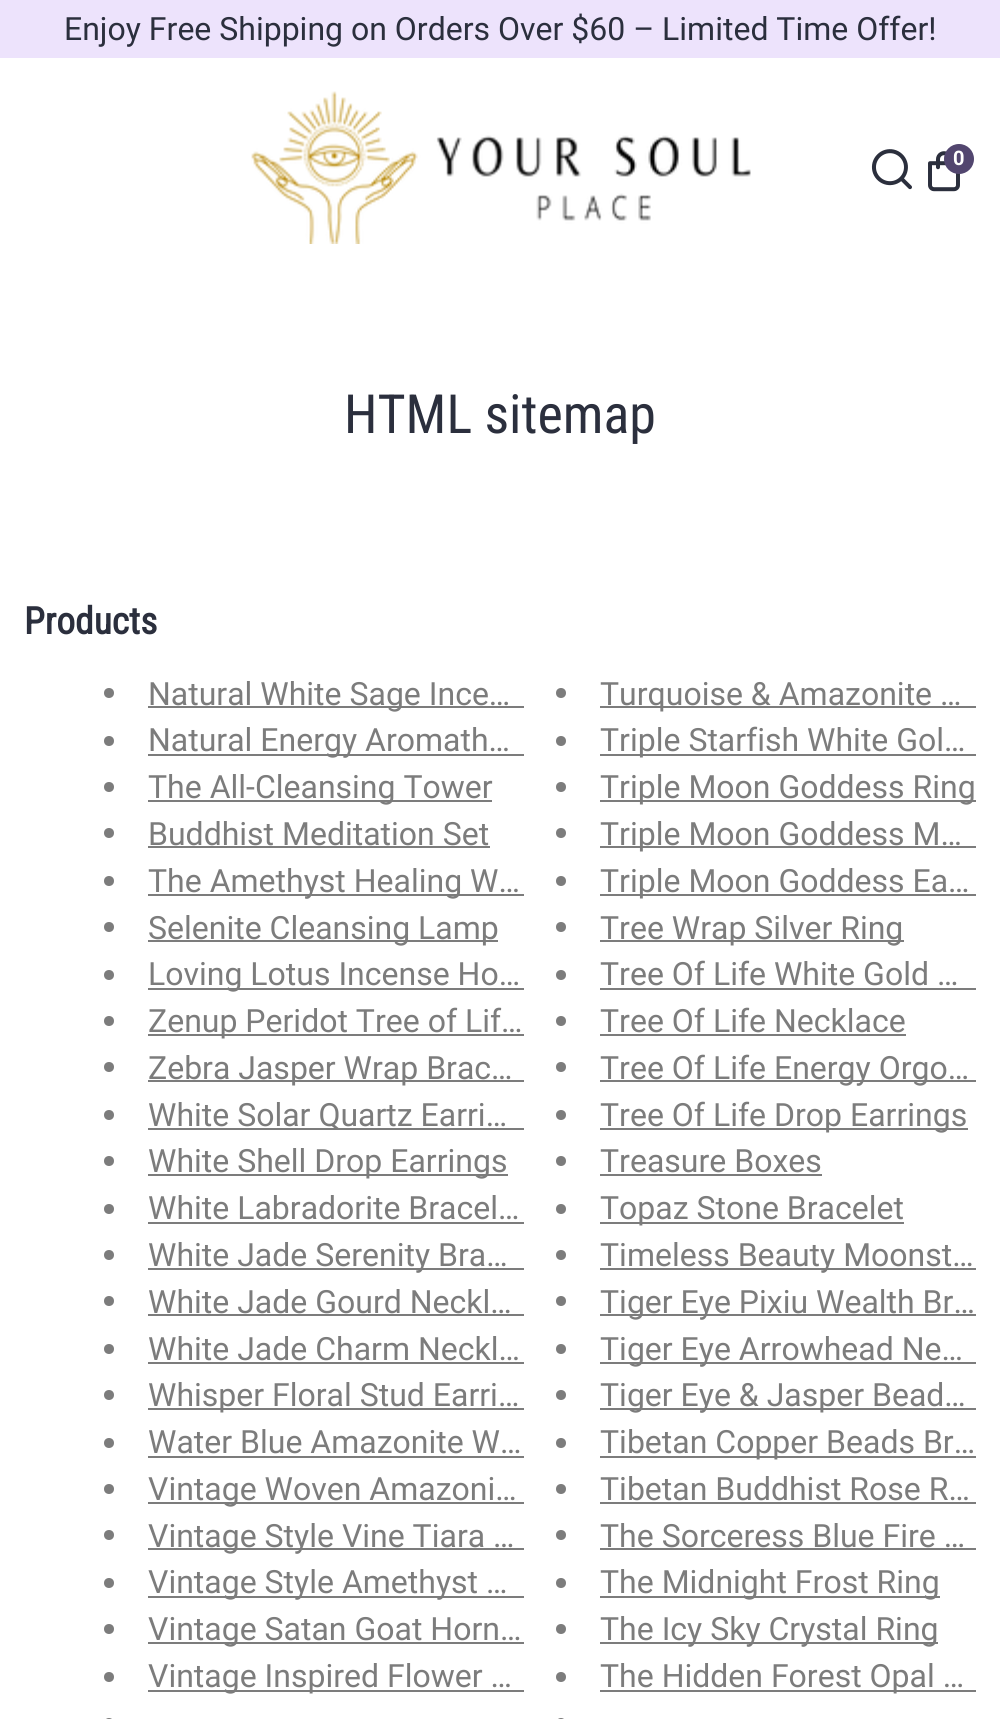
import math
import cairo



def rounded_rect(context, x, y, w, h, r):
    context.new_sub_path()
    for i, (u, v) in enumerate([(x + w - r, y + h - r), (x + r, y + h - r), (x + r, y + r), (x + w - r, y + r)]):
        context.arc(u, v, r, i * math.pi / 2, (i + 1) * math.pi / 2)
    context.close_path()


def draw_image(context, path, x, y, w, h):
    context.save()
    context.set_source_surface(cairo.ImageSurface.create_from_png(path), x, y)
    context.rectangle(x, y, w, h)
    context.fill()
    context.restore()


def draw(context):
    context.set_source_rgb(1, 1, 1)
    context.paint()
    context.set_source_rgb(237 / 255, 227 / 255, 252 / 255)
    context.rectangle(0, 0, 1000, 58)
    context.fill()
    draw_image(context, "images/1.png", 251, 91, 500, 153)
    draw_image(context, "images/2.png", 871, 149, 41, 41)
    draw_image(context, "images/3.png", 928, 151, 32, 41)
    context.set_source_rgb(82 / 255, 70 / 255, 111 / 255)
    context.arc(959, 159, 15, 0, 2 * math.pi)
    context.fill()
    context.set_source_rgb(124 / 255, 124 / 255, 124 / 255)
    context.arc(109, 693, 5, 0, 2 * math.pi)
    context.fill()
    context.rectangle(148, 706, 376, 2)
    context.fill()
    context.arc(561, 693, 5, 0, 2 * math.pi)
    context.fill()
    context.rectangle(600, 706, 376, 2)
    context.fill()
    context.arc(109, 741, 5, 0, 2 * math.pi)
    context.fill()
    context.rectangle(148, 754, 376, 2)
    context.fill()
    context.arc(561, 741, 5, 0, 2 * math.pi)
    context.fill()
    context.rectangle(600, 754, 376, 2)
    context.fill()
    context.arc(109, 787, 5, 0, 2 * math.pi)
    context.fill()
    context.rectangle(148, 800, 344, 2)
    context.fill()
    context.arc(561, 787, 5, 0, 2 * math.pi)
    context.fill()
    context.rectangle(600, 800, 376, 2)
    context.fill()
    context.arc(109, 833, 5, 0, 2 * math.pi)
    context.fill()
    context.rectangle(148, 846, 342, 2)
    context.fill()
    context.arc(561, 833, 5, 0, 2 * math.pi)
    context.fill()
    context.rectangle(600, 846, 376, 2)
    context.fill()
    context.arc(109, 881, 5, 0, 2 * math.pi)
    context.fill()
    context.rectangle(148, 894, 376, 2)
    context.fill()
    context.arc(561, 881, 5, 0, 2 * math.pi)
    context.fill()
    context.rectangle(600, 894, 376, 2)
    context.fill()
    context.arc(109, 927, 5, 0, 2 * math.pi)
    context.fill()
    context.rectangle(148, 940, 350, 2)
    context.fill()
    context.arc(561, 927, 5, 0, 2 * math.pi)
    context.fill()
    context.rectangle(600, 940, 304, 2)
    context.fill()
    context.arc(109, 975, 5, 0, 2 * math.pi)
    context.fill()
    context.rectangle(148, 988, 376, 2)
    context.fill()
    context.arc(561, 975, 5, 0, 2 * math.pi)
    context.fill()
    context.rectangle(600, 988, 376, 2)
    context.fill()
    context.arc(109, 1021, 5, 0, 2 * math.pi)
    context.fill()
    context.rectangle(148, 1034, 376, 2)
    context.fill()
    context.arc(561, 1021, 5, 0, 2 * math.pi)
    context.fill()
    context.rectangle(600, 1034, 306, 2)
    context.fill()
    context.arc(109, 1067, 5, 0, 2 * math.pi)
    context.fill()
    context.rectangle(148, 1080, 376, 2)
    context.fill()
    context.arc(561, 1067, 5, 0, 2 * math.pi)
    context.fill()
    context.rectangle(600, 1080, 376, 2)
    context.fill()
    context.arc(109, 1115, 5, 0, 2 * math.pi)
    context.fill()
    context.rectangle(148, 1128, 376, 2)
    context.fill()
    context.arc(561, 1115, 5, 0, 2 * math.pi)
    context.fill()
    context.rectangle(600, 1128, 368, 2)
    context.fill()
    context.arc(109, 1161, 5, 0, 2 * math.pi)
    context.fill()
    context.rectangle(148, 1174, 360, 2)
    context.fill()
    context.arc(561, 1161, 5, 0, 2 * math.pi)
    context.fill()
    context.rectangle(600, 1174, 222, 2)
    context.fill()
    context.arc(109, 1209, 5, 0, 2 * math.pi)
    context.fill()
    context.rectangle(148, 1222, 376, 2)
    context.fill()
    context.arc(561, 1209, 5, 0, 2 * math.pi)
    context.fill()
    context.rectangle(600, 1222, 304, 2)
    context.fill()
    context.arc(109, 1255, 5, 0, 2 * math.pi)
    context.fill()
    context.rectangle(148, 1268, 376, 2)
    context.fill()
    context.arc(561, 1255, 5, 0, 2 * math.pi)
    context.fill()
    context.rectangle(600, 1268, 376, 2)
    context.fill()
    context.arc(109, 1301, 5, 0, 2 * math.pi)
    context.fill()
    context.rectangle(148, 1314, 376, 2)
    context.fill()
    context.arc(561, 1301, 5, 0, 2 * math.pi)
    context.fill()
    context.rectangle(600, 1314, 376, 2)
    context.fill()
    context.arc(109, 1349, 5, 0, 2 * math.pi)
    context.fill()
    context.rectangle(148, 1362, 376, 2)
    context.fill()
    context.arc(561, 1349, 5, 0, 2 * math.pi)
    context.fill()
    context.rectangle(600, 1362, 376, 2)
    context.fill()
    context.arc(109, 1395, 5, 0, 2 * math.pi)
    context.fill()
    context.rectangle(148, 1408, 376, 2)
    context.fill()
    context.arc(561, 1395, 5, 0, 2 * math.pi)
    context.fill()
    context.rectangle(600, 1408, 376, 2)
    context.fill()
    context.arc(109, 1443, 5, 0, 2 * math.pi)
    context.fill()
    context.rectangle(148, 1456, 376, 2)
    context.fill()
    context.arc(561, 1443, 5, 0, 2 * math.pi)
    context.fill()
    context.rectangle(600, 1456, 376, 2)
    context.fill()
    context.arc(109, 1489, 5, 0, 2 * math.pi)
    context.fill()
    context.rectangle(148, 1502, 376, 2)
    context.fill()
    context.arc(561, 1489, 5, 0, 2 * math.pi)
    context.fill()
    context.rectangle(600, 1502, 376, 2)
    context.fill()
    context.arc(109, 1535, 5, 0, 2 * math.pi)
    context.fill()
    context.rectangle(148, 1548, 376, 2)
    context.fill()
    context.arc(561, 1535, 5, 0, 2 * math.pi)
    context.fill()
    context.rectangle(600, 1548, 376, 2)
    context.fill()
    context.arc(109, 1583, 5, 0, 2 * math.pi)
    context.fill()
    context.rectangle(148, 1596, 376, 2)
    context.fill()
    context.arc(561, 1583, 5, 0, 2 * math.pi)
    context.fill()
    context.rectangle(600, 1596, 340, 2)
    context.fill()
    context.arc(109, 1629, 5, 0, 2 * math.pi)
    context.fill()
    context.rectangle(148, 1642, 376, 2)
    context.fill()
    context.arc(561, 1629, 5, 0, 2 * math.pi)
    context.fill()
    context.rectangle(600, 1642, 338, 2)
    context.fill()
    context.arc(109, 1677, 5, 0, 2 * math.pi)
    context.fill()
    context.rectangle(148, 1690, 376, 2)
    context.fill()
    context.arc(561, 1677, 5, 0, 2 * math.pi)
    context.fill()
    context.rectangle(600, 1690, 376, 2)
    context.fill()
    rounded_rect(context, 104, 1718, 10, 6, 5)
    context.fill()
    rounded_rect(context, 556, 1718, 10, 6, 5)
    context.fill()
    context.select_font_face("Roboto")
    context.set_font_size(32)
    context.set_source_rgb(43 / 255, 47 / 255, 61 / 255)
    context.move_to(64, 40)
    context.show_text("Enjoy Free Shipping on Orders Over $60 – Limited Time Offer!")
    context.select_font_face("Roboto", cairo.FontSlant.NORMAL, cairo.FontWeight.BOLD)
    context.set_font_size(20)
    context.set_source_rgb(1, 1, 1)
    context.move_to(953, 165)
    context.show_text("0")
    context.select_font_face("Roboto Condensed")
    context.set_font_size(54)
    context.set_source_rgb(43 / 255, 47 / 255, 61 / 255)
    context.move_to(344, 433)
    context.show_text("HTML sitemap")
    context.select_font_face("Roboto Condensed", cairo.FontSlant.NORMAL, cairo.FontWeight.BOLD)
    context.set_font_size(37.5)
    context.move_to(24, 634)
    context.show_text("Products")
    context.select_font_face("Roboto")
    context.set_font_size(32)
    context.set_source_rgb(124 / 255, 124 / 255, 124 / 255)
    context.move_to(148, 705)
    context.show_text("Natural White Sage Ince…")
    context.move_to(600, 705)
    context.show_text("Turquoise & Amazonite …")
    context.move_to(148, 751)
    context.show_text("Natural Energy Aromath…")
    context.move_to(600, 751)
    context.show_text("Triple Starfish White Gol…")
    context.move_to(148, 798)
    context.show_text("The All-Cleansing Tower")
    context.move_to(600, 798)
    context.show_text("Triple Moon Goddess Ring")
    context.move_to(148, 845)
    context.show_text("Buddhist Meditation Set")
    context.move_to(600, 845)
    context.show_text("Triple Moon Goddess M…")
    context.move_to(148, 892)
    context.show_text("The Amethyst Healing W…")
    context.move_to(600, 892)
    context.show_text("Triple Moon Goddess Ea…")
    context.move_to(148, 939)
    context.show_text("Selenite Cleansing Lamp")
    context.move_to(600, 939)
    context.show_text("Tree Wrap Silver Ring")
    context.move_to(148, 985)
    context.show_text("Loving Lotus Incense Ho…")
    context.move_to(600, 985)
    context.show_text("Tree Of Life White Gold …")
    context.move_to(148, 1032)
    context.show_text("Zenup Peridot Tree of Lif…")
    context.move_to(600, 1032)
    context.show_text("Tree Of Life Necklace")
    context.move_to(148, 1079)
    context.show_text("Zebra Jasper Wrap Brac…")
    context.move_to(600, 1079)
    context.show_text("Tree Of Life Energy Orgo…")
    context.move_to(148, 1126)
    context.show_text("White Solar Quartz Earri…")
    context.move_to(600, 1126)
    context.show_text("Tree Of Life Drop Earrings")
    context.move_to(148, 1172)
    context.show_text("White Shell Drop Earrings")
    context.move_to(600, 1172)
    context.show_text("Treasure Boxes")
    context.move_to(148, 1219)
    context.show_text("White Labradorite Bracel…")
    context.move_to(600, 1219)
    context.show_text("Topaz Stone Bracelet")
    context.move_to(148, 1266)
    context.show_text("White Jade Serenity Bra…")
    context.move_to(600, 1266)
    context.show_text("Timeless Beauty Moonst…")
    context.move_to(148, 1313)
    context.show_text("White Jade Gourd Neckl…")
    context.move_to(600, 1313)
    context.show_text("Tiger Eye Pixiu Wealth Br…")
    context.move_to(148, 1360)
    context.show_text("White Jade Charm Neckl…")
    context.move_to(600, 1360)
    context.show_text("Tiger Eye Arrowhead Ne…")
    context.move_to(148, 1406)
    context.show_text("Whisper Floral Stud Earri…")
    context.move_to(600, 1406)
    context.show_text("Tiger Eye & Jasper Bead…")
    context.move_to(148, 1453)
    context.show_text("Water Blue Amazonite W…")
    context.move_to(600, 1453)
    context.show_text("Tibetan Copper Beads Br…")
    context.move_to(148, 1500)
    context.show_text("Vintage Woven Amazoni…")
    context.move_to(600, 1500)
    context.show_text("Tibetan Buddhist Rose R…")
    context.move_to(148, 1547)
    context.show_text("Vintage Style Vine Tiara …")
    context.move_to(600, 1547)
    context.show_text("The Sorceress Blue Fire …")
    context.move_to(148, 1593)
    context.show_text("Vintage Style Amethyst …")
    context.move_to(600, 1593)
    context.show_text("The Midnight Frost Ring")
    context.move_to(148, 1640)
    context.show_text("Vintage Satan Goat Horn…")
    context.move_to(600, 1640)
    context.show_text("The Icy Sky Crystal Ring")
    context.move_to(148, 1687)
    context.show_text("Vintage Inspired Flower …")
    context.move_to(600, 1687)
    context.show_text("The Hidden Forest Opal …")


surface = cairo.ImageSurface(cairo.Format.RGB24, 1000, 1719)
context = cairo.Context(surface)
options = cairo.FontOptions()
options.set_hint_metrics(cairo.HintMetrics.OFF)
options.set_hint_style(cairo.HintStyle.NONE)
context.set_font_options(options)
context.set_miter_limit(4)
draw(context)
surface.write_to_png("out.png")
